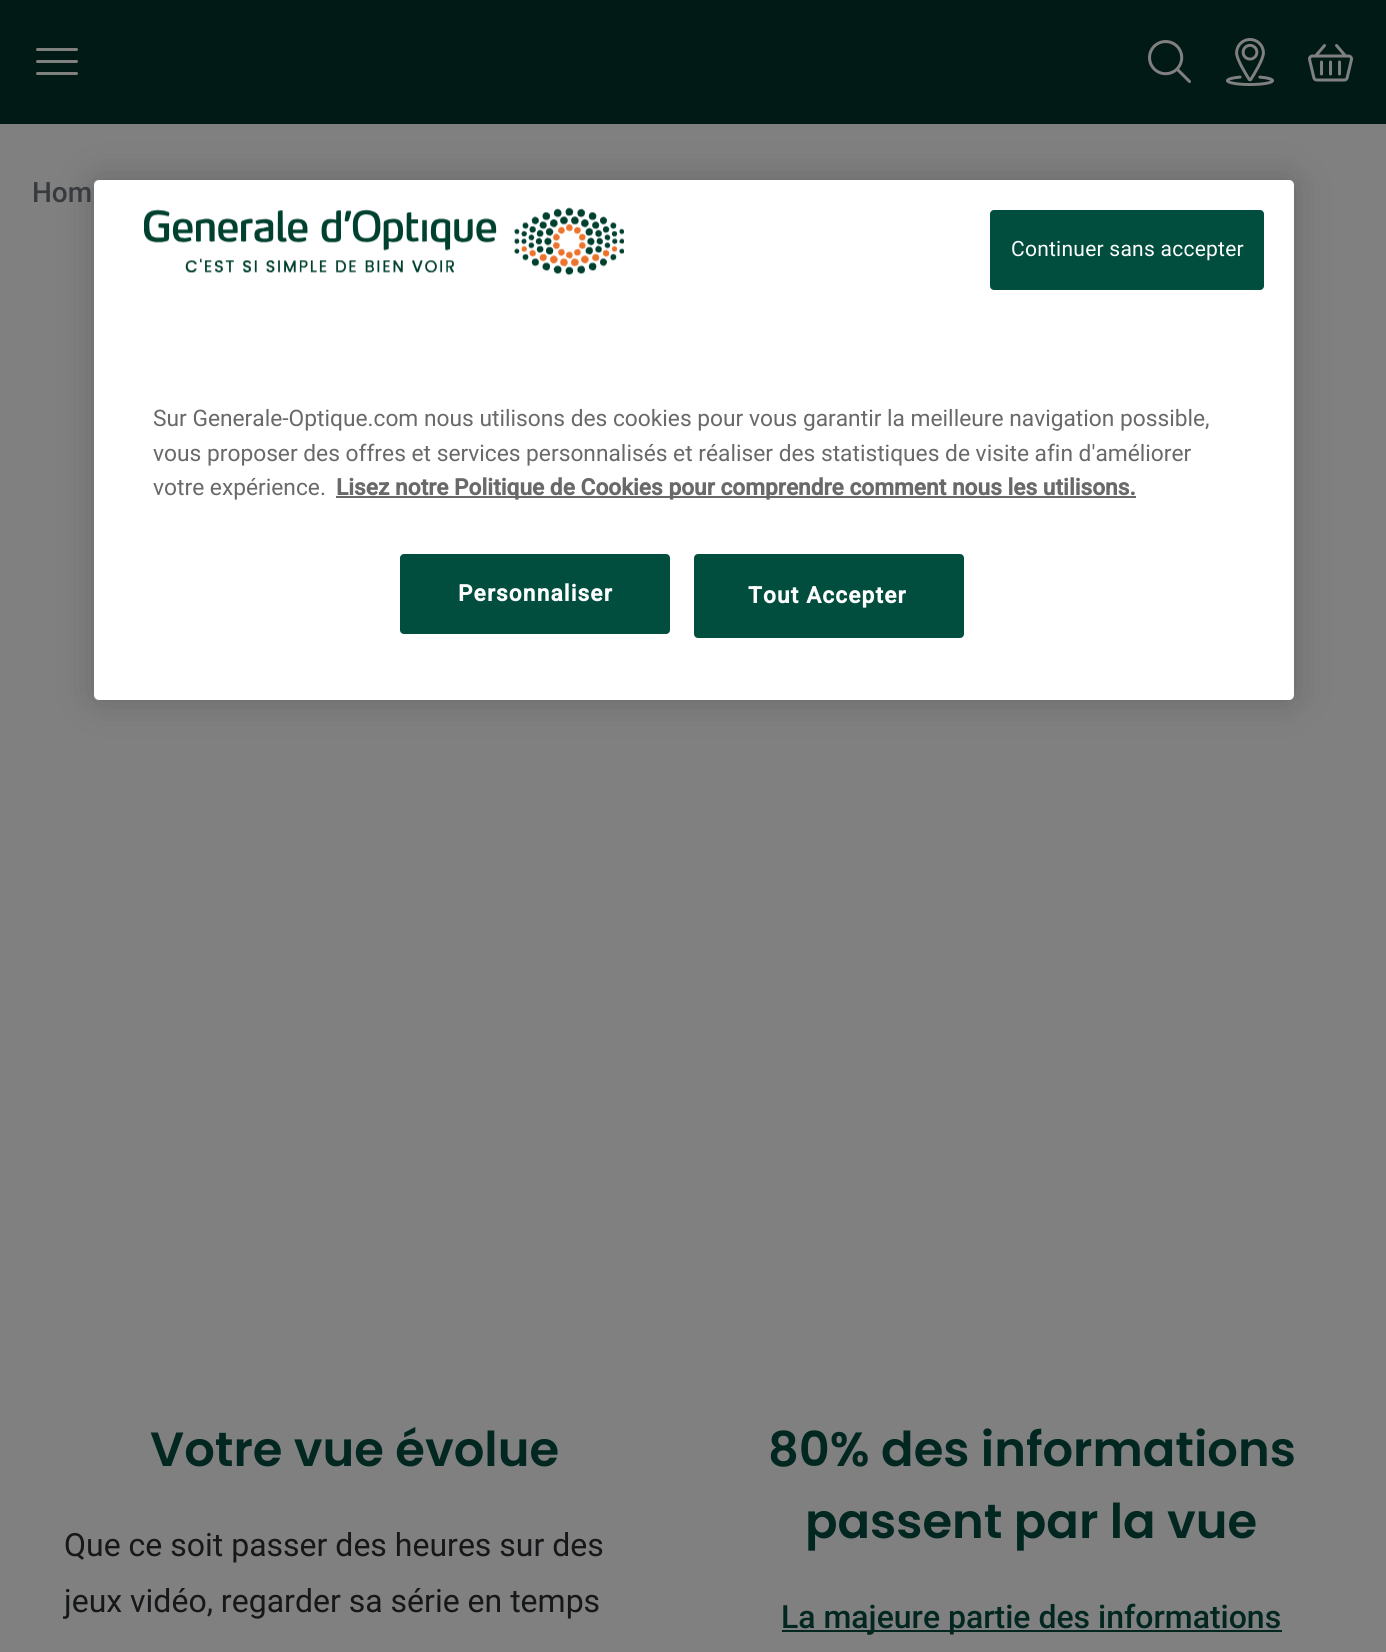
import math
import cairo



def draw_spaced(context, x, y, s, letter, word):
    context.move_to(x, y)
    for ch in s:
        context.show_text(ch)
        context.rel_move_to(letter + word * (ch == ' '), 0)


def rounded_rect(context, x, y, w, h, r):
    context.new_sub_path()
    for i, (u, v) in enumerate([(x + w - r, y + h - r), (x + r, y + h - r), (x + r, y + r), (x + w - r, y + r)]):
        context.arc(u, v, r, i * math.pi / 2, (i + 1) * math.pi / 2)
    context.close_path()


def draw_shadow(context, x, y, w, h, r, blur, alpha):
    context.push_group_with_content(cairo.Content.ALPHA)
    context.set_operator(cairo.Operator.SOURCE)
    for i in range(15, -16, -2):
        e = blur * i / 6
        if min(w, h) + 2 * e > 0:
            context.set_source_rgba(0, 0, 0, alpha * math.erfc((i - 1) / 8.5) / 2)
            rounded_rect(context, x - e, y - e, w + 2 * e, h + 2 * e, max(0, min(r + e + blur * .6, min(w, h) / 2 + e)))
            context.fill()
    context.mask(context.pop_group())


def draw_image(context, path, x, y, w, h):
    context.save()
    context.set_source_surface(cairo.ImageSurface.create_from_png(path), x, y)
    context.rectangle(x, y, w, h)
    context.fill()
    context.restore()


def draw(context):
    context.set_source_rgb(128 / 255, 128 / 255, 128 / 255)
    context.paint()
    context.set_source_rgb(1 / 255, 26 / 255, 21 / 255)
    context.rectangle(0, 0, 1386, 124)
    context.fill()
    draw_image(context, "images/1.png", 36, 48, 42, 27)
    draw_image(context, "images/2.png", 1148, 40, 43, 43)
    draw_image(context, "images/3.png", 1226, 38, 48, 48)
    draw_image(context, "images/4.png", 1308, 44, 45, 38)
    context.set_source_rgb(1 / 255, 39 / 255, 32 / 255)
    context.rectangle(782, 1630, 500, 2)
    context.fill()
    context.set_source_rgb(0, 0, 0)
    draw_shadow(context, 94, 180, 1200, 520, 5, 18, 0.2)
    context.set_source_rgb(1, 1, 1)
    rounded_rect(context, 94, 180, 1200, 520, 5)
    context.fill()
    draw_image(context, "images/5.png", 144, 207, 480, 69)
    context.set_source_rgb(1 / 255, 78 / 255, 63 / 255)
    rounded_rect(context, 990, 210, 274, 80, 4)
    context.fill()
    context.set_source_rgb(105 / 255, 105 / 255, 105 / 255)
    context.rectangle(336, 496, 800, 2)
    context.fill()
    context.set_source_rgb(1 / 255, 78 / 255, 63 / 255)
    rounded_rect(context, 400, 554, 270, 80, 4)
    context.fill()
    rounded_rect(context, 695, 555, 268, 82, 3)
    context.fill_preserve()
    context.stroke()
    context.select_font_face("Roboto Medium")
    context.set_font_size(28)
    context.set_source_rgb(55 / 255, 59 / 255, 63 / 255)
    context.move_to(32, 202)
    context.show_text("Hom")
    context.select_font_face("Poppins SemiBold")
    context.set_font_size(48)
    context.set_source_rgb(1 / 255, 39 / 255, 32 / 255)
    context.move_to(150, 1466)
    context.show_text("Votre vue évolue")
    context.select_font_face("Roboto")
    context.set_font_size(32)
    context.set_source_rgb(22 / 255, 23 / 255, 25 / 255)
    context.move_to(64, 1556)
    context.show_text("Que ce soit passer des heures sur des")
    context.move_to(64, 1612)
    context.show_text("jeux vidéo, regarder sa série en temps")
    context.select_font_face("Poppins SemiBold")
    context.set_font_size(48)
    context.set_source_rgb(1 / 255, 39 / 255, 32 / 255)
    context.move_to(768, 1466)
    context.show_text("80% des informations")
    context.move_to(805, 1538)
    context.show_text("passent par la vue")
    context.select_font_face("Roboto Medium")
    context.set_font_size(32)
    context.move_to(781, 1628)
    context.show_text("La majeure partie des informations")
    context.select_font_face("Roboto")
    context.set_font_size(21)
    context.set_source_rgb(1, 1, 1)
    draw_spaced(context, 1011, 256, "Continuer sans accepter", 0.25, 0)
    context.set_font_size(22.75)
    context.set_source_rgb(105 / 255, 105 / 255, 105 / 255)
    context.move_to(153, 426)
    context.show_text("Sur Generale-Optique.com nous utilisons des cookies pour vous garantir la meilleure navigation possible,")
    context.move_to(153, 461)
    context.show_text("vous proposer des offres et services personnalisés et réaliser des statistiques de visite afin d'améliorer")
    context.move_to(153, 495)
    context.show_text("votre expérience.")
    context.select_font_face("Roboto", cairo.FontSlant.NORMAL, cairo.FontWeight.BOLD)
    context.move_to(336, 495)
    context.show_text("Lisez notre Politique de Cookies pour comprendre comment nous les utilisons.")
    context.set_source_rgb(1, 1, 1)
    draw_spaced(context, 458, 601, "Personnaliser", 1.1, 0)
    draw_spaced(context, 748, 603, "Tout Accepter", 1.1, 0)


surface = cairo.ImageSurface(cairo.Format.RGB24, 1386, 1652)
context = cairo.Context(surface)
options = cairo.FontOptions()
options.set_hint_metrics(cairo.HintMetrics.OFF)
options.set_hint_style(cairo.HintStyle.NONE)
context.set_font_options(options)
context.set_miter_limit(4)
draw(context)
surface.write_to_png("out.png")
